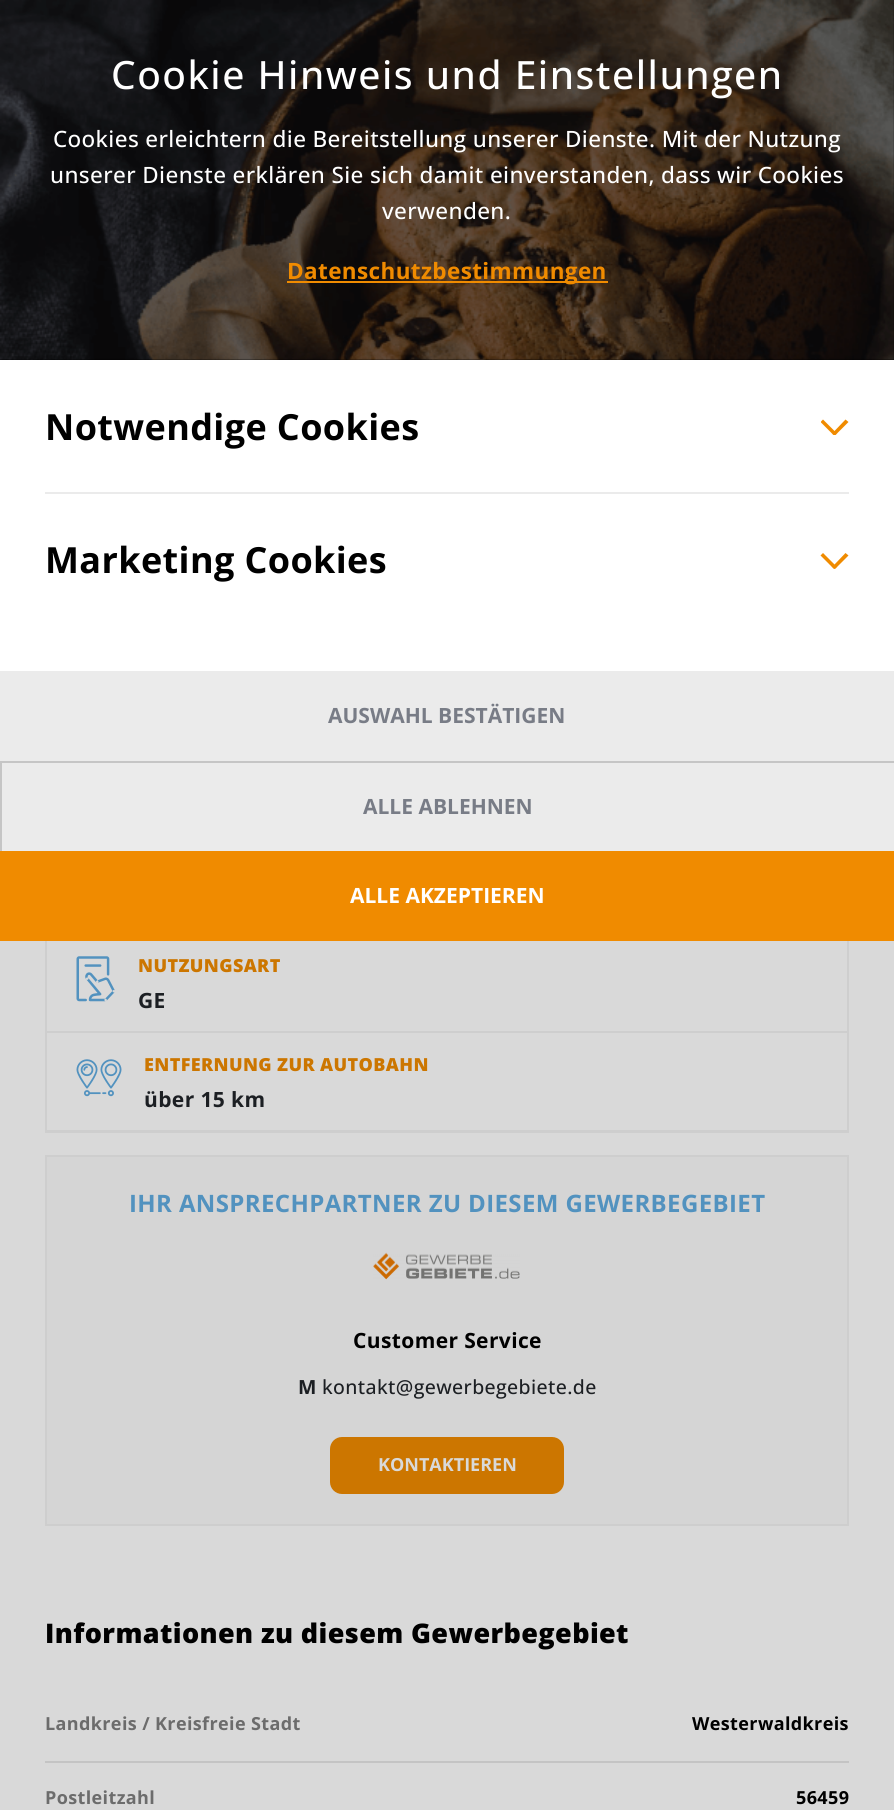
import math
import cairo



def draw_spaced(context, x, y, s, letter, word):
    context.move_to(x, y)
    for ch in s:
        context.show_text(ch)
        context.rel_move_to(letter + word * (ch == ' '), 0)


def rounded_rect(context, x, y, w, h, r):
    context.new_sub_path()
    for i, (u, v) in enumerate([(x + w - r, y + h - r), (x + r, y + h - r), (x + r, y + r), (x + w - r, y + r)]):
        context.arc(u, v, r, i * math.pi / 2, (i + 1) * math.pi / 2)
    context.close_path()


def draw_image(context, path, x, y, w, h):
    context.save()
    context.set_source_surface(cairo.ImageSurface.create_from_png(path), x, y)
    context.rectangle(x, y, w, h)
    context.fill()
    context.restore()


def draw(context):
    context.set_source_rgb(217 / 255, 217 / 255, 217 / 255)
    context.paint()
    context.set_source_rgb(0, 0, 0)
    context.rectangle(0, 0, 894, 360)
    context.fill()
    draw_image(context, "images/1.png", 0, 0, 894, 360)
    context.set_source_rgb(240 / 255, 139 / 255, 0)
    context.rectangle(287, 281, 321, 2)
    context.fill()
    context.set_source_rgb(1, 1, 1)
    context.rectangle(0, 360, 894, 311)
    context.fill()
    context.set_source_rgb(235 / 255, 235 / 255, 235 / 255)
    context.rectangle(45, 492, 804, 2)
    context.fill()
    context.save()
    context.rectangle(821, 419, 28, 16)
    context.clip()
    context.set_source_rgb(240 / 255, 139 / 255, 0)
    context.new_path()
    context.move_to(845.5, 419.5)
    context.line_to(834.5, 431)
    context.line_to(823, 419.5)
    context.line_to(820.5, 422)
    context.line_to(831, 432.5)
    context.curve_to(834.5, 436.5, 834.5, 436.5, 838, 432.5)
    context.line_to(848.5, 422)
    context.close_path()
    context.fill()
    context.restore()
    context.set_source_rgb(240 / 255, 139 / 255, 0)
    context.new_path()
    context.move_to(845.5, 553)
    context.line_to(834.5, 564.5)
    context.line_to(823, 553)
    context.line_to(820.5, 555.5)
    context.line_to(831, 566)
    context.curve_to(834.5, 570, 834.5, 570, 838, 566)
    context.line_to(848.5, 555.5)
    context.close_path()
    context.fill()
    context.set_source_rgb(235 / 255, 235 / 255, 235 / 255)
    context.rectangle(0, 671, 894, 90)
    context.fill()
    context.rectangle(46, 834, 802, 298)
    context.set_source_rgb(206 / 255, 206 / 255, 206 / 255)
    context.stroke()
    context.set_source_rgb(235 / 255, 235 / 255, 235 / 255)
    context.rectangle(2, 763, 892, 88)
    context.fill()
    context.set_source_rgb(197 / 255, 197 / 255, 197 / 255)
    context.rectangle(0, 761, 894, 2)
    context.fill()
    context.rectangle(0, 761, 2, 90)
    context.fill()
    context.set_source_rgb(240 / 255, 139 / 255, 0)
    context.rectangle(0, 851, 894, 90)
    context.fill()
    context.set_source_rgb(206 / 255, 206 / 255, 206 / 255)
    context.rectangle(47, 1031, 801, 2)
    context.fill()
    draw_image(context, "images/2.png", 76, 956, 39, 46)
    context.rectangle(47, 1130, 801, 1)
    context.fill()
    draw_image(context, "images/3.png", 76, 1059, 46, 38)
    context.set_source_rgb(213 / 255, 213 / 255, 213 / 255)
    context.rectangle(46, 1156, 802, 369)
    context.fill_preserve()
    context.set_source_rgb(206 / 255, 206 / 255, 206 / 255)
    context.stroke()
    draw_image(context, "images/4.png", 373, 1252, 147, 28)
    context.set_source_rgb(204 / 255, 118 / 255, 0)
    rounded_rect(context, 331, 1438, 232, 55, 11)
    context.fill_preserve()
    context.stroke()
    context.set_source_rgb(196 / 255, 196 / 255, 196 / 255)
    context.rectangle(45, 1761, 804, 2)
    context.fill()
    context.select_font_face("Open Sans Medium")
    context.set_font_size(39)
    context.set_source_rgb(1, 1, 1)
    draw_spaced(context, 111, 89, "Cookie Hinweis und Einstellungen", 1.5, 0)
    context.set_font_size(22.5)
    draw_spaced(context, 53, 147, "Cookies erleichtern die Bereitstellung unserer Dienste. Mit der Nutzung", 0.38, 0)
    draw_spaced(context, 50, 183, "unserer Dienste erklären Sie sich damit einverstanden, dass wir Cookies", 0.38, 0)
    draw_spaced(context, 382, 219, "verwenden.", 0.38, 0)
    context.select_font_face("Open Sans", cairo.FontSlant.NORMAL, cairo.FontWeight.BOLD)
    context.set_source_rgb(240 / 255, 139 / 255, 0)
    draw_spaced(context, 287, 279, "Datenschutzbestimmungen", 0.38, 0)
    context.set_font_size(36)
    context.set_source_rgb(0, 0, 0)
    draw_spaced(context, 45, 440, "Notwendige Cookies", 0.38, 0)
    draw_spaced(context, 45, 573, "Marketing Cookies", 0.38, 0)
    context.set_font_size(21)
    context.set_source_rgb(120 / 255, 124 / 255, 134 / 255)
    context.move_to(328, 723)
    context.show_text("AUSWAHL BESTÄTIGEN")
    context.move_to(363, 814)
    context.show_text("ALLE ABLEHNEN")
    context.set_source_rgb(1, 1, 1)
    context.move_to(350, 903)
    context.show_text("ALLE AKZEPTIEREN")
    context.select_font_face("Open Sans ExtraBold")
    context.set_font_size(18)
    context.set_source_rgb(204 / 255, 118 / 255, 0)
    draw_spaced(context, 138, 972, "NUTZUNGSART", 0.38, 0)
    context.select_font_face("Open Sans", cairo.FontSlant.NORMAL, cairo.FontWeight.BOLD)
    context.set_font_size(21)
    context.set_source_rgb(28 / 255, 31 / 255, 35 / 255)
    draw_spaced(context, 138, 1008, "GE", 0.38, 0)
    context.select_font_face("Open Sans ExtraBold")
    context.set_font_size(18)
    context.set_source_rgb(204 / 255, 118 / 255, 0)
    draw_spaced(context, 144, 1071, "ENTFERNUNG ZUR AUTOBAHN", 0.38, 0)
    context.select_font_face("Open Sans", cairo.FontSlant.NORMAL, cairo.FontWeight.BOLD)
    context.set_font_size(21)
    context.set_source_rgb(28 / 255, 31 / 255, 35 / 255)
    draw_spaced(context, 144, 1107, "über 15 km", 0.38, 0)
    context.set_font_size(24)
    context.set_source_rgb(82 / 255, 146 / 255, 191 / 255)
    draw_spaced(context, 129, 1212, "IHR ANSPRECHPARTNER ZU DIESEM GEWERBEGEBIET", 0.38, 0)
    context.set_font_size(21)
    context.set_source_rgb(0, 0, 0)
    draw_spaced(context, 353, 1348, "Customer Service", 0.38, 0)
    context.set_font_size(19.5)
    context.set_source_rgb(28 / 255, 31 / 255, 35 / 255)
    draw_spaced(context, 298, 1394, "M", 0.38, 0)
    context.select_font_face("Open Sans Medium")
    draw_spaced(context, 322, 1394, "kontakt@gewerbegebiete.de", 0.38, 0)
    context.select_font_face("Open Sans", cairo.FontSlant.NORMAL, cairo.FontWeight.BOLD)
    context.set_font_size(18)
    context.set_source_rgb(217 / 255, 217 / 255, 217 / 255)
    context.move_to(378, 1471)
    context.show_text("KONTAKTIEREN")
    context.select_font_face("Open Sans ExtraBold")
    context.set_font_size(27)
    context.set_source_rgb(0, 0, 0)
    draw_spaced(context, 45, 1643, "Informationen zu diesem Gewerbegebiet", 0.38, 0)
    context.select_font_face("Open Sans", cairo.FontSlant.NORMAL, cairo.FontWeight.BOLD)
    context.set_font_size(18)
    context.set_source_rgb(108 / 255, 108 / 255, 108 / 255)
    draw_spaced(context, 45, 1730, "Landkreis / Kreisfreie Stadt", 0.38, 0)
    context.set_source_rgb(0, 0, 0)
    draw_spaced(context, 692, 1730, "Westerwaldkreis", 0.38, 0)
    context.set_source_rgb(108 / 255, 108 / 255, 108 / 255)
    draw_spaced(context, 45, 1804, "Postleitzahl", 0.38, 0)
    context.set_source_rgb(0, 0, 0)
    draw_spaced(context, 796, 1804, "56459", 0.38, 0)


surface = cairo.ImageSurface(cairo.Format.RGB24, 894, 1810)
context = cairo.Context(surface)
options = cairo.FontOptions()
options.set_hint_metrics(cairo.HintMetrics.OFF)
options.set_hint_style(cairo.HintStyle.NONE)
context.set_font_options(options)
context.set_miter_limit(4)
draw(context)
surface.write_to_png("out.png")
